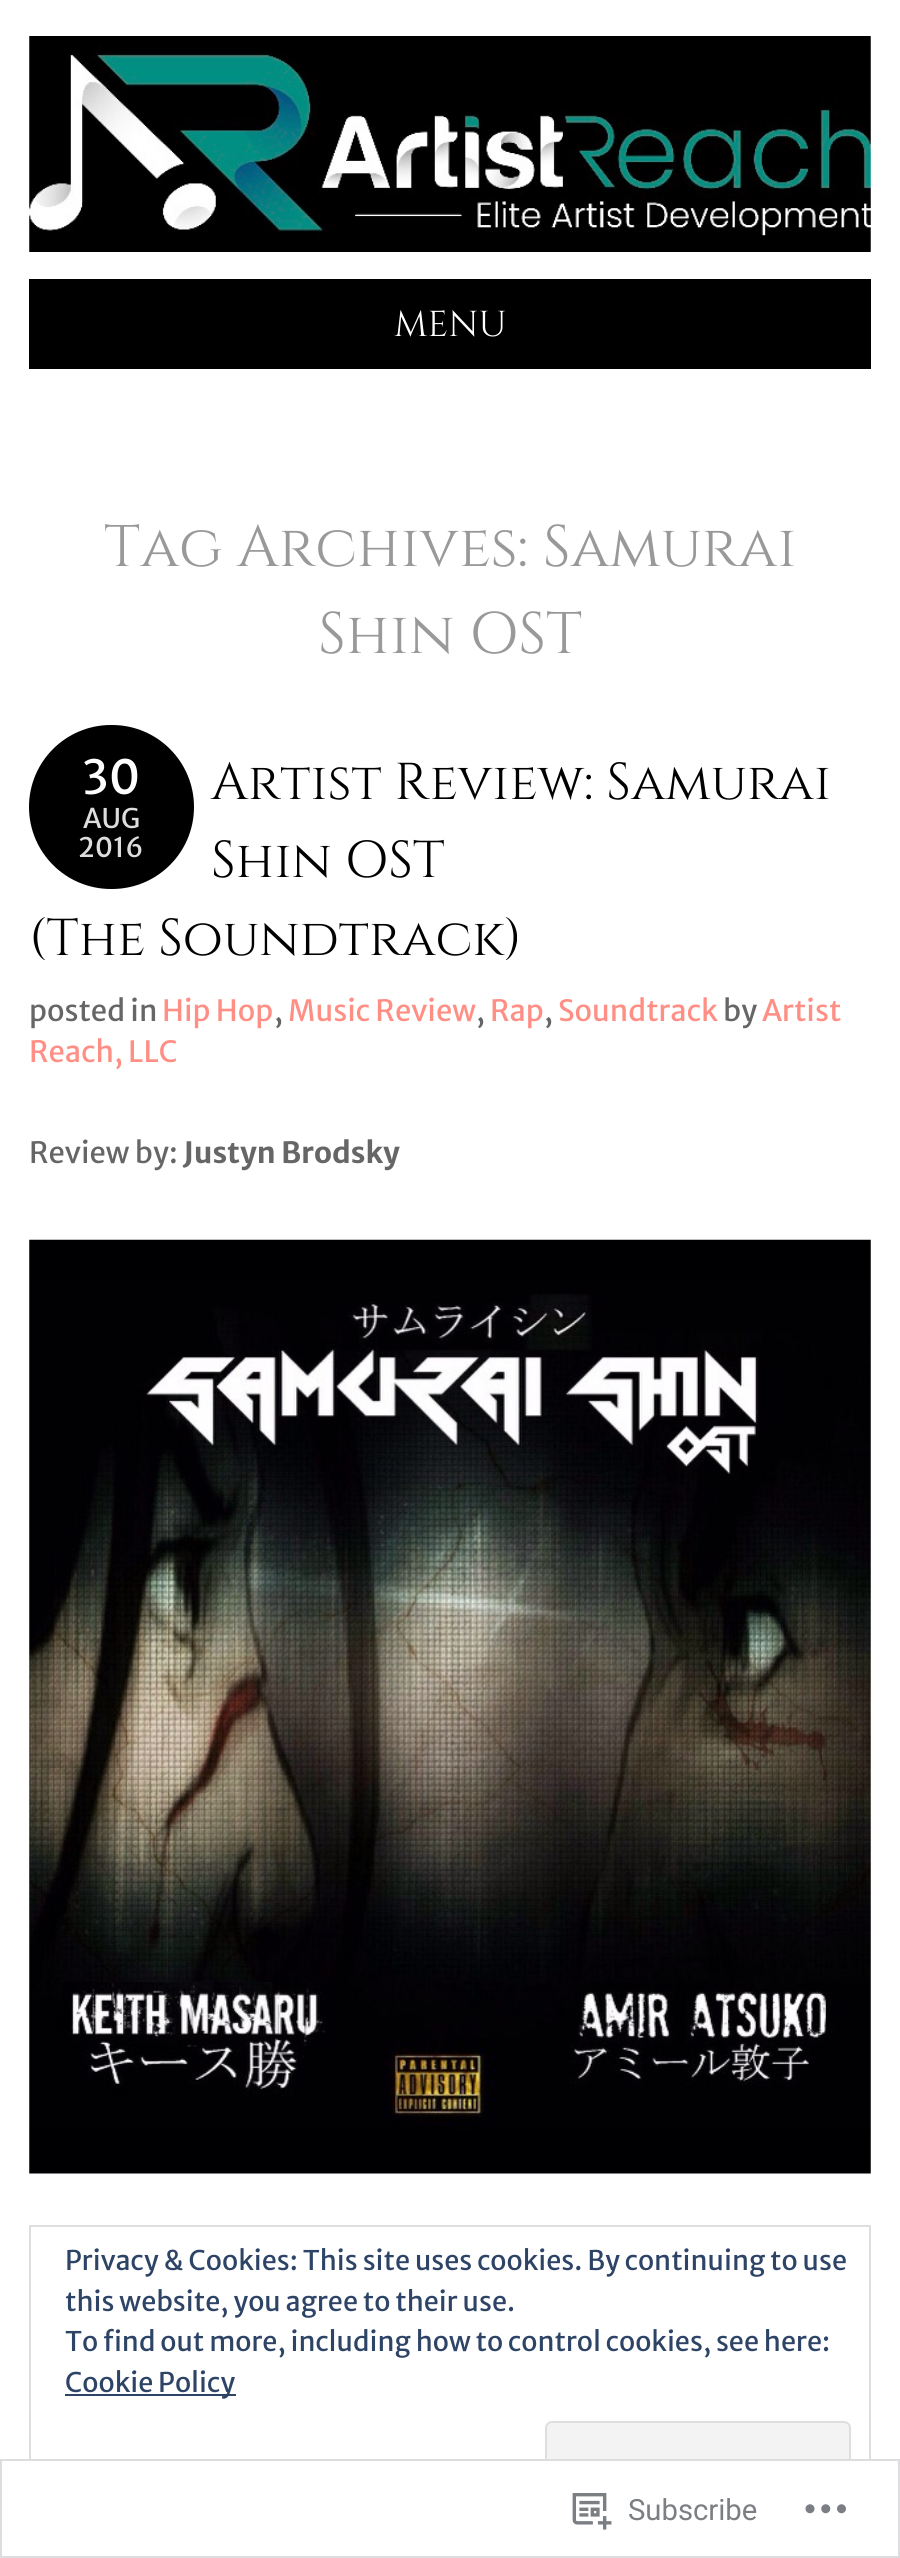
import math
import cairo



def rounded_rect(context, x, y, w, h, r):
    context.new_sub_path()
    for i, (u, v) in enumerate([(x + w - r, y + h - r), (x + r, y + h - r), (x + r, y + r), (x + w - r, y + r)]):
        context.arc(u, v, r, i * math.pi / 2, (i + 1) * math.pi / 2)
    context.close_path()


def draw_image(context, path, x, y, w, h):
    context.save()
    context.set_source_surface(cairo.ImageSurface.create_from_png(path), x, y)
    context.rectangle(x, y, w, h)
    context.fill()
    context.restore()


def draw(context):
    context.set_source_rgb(1, 1, 1)
    context.paint()
    draw_image(context, "images/1.png", 29, 36, 842, 216)
    context.set_source_rgb(0, 0, 0)
    context.rectangle(29, 279, 842, 90)
    context.fill()
    rounded_rect(context, 29, 725, 165, 164, 82)
    context.fill()
    draw_image(context, "images/2.png", 29, 1239, 842, 935)
    context.rectangle(30, 2226, 840, 302)
    context.set_source_rgb(222 / 255, 222 / 255, 222 / 255)
    context.stroke()
    context.set_source_rgb(46 / 255, 68 / 255, 103 / 255)
    context.rectangle(65, 2394, 171, 2)
    context.fill()
    context.set_source_rgb(243 / 255, 243 / 255, 243 / 255)
    rounded_rect(context, 546, 2422, 304, 86, 6)
    context.fill_preserve()
    context.set_source_rgb(222 / 255, 222 / 255, 222 / 255)
    context.stroke()
    context.set_source_rgba(1, 1, 1, 0.98)
    context.rectangle(29, 2459, 842, 70)
    context.fill()
    context.rectangle(1, 2460, 898, 97)
    context.set_source_rgba(220 / 255, 220 / 255, 222 / 255, 0.98)
    context.stroke()
    draw_image(context, "images/3.png", 572, 2493, 40, 37)
    draw_image(context, "images/4.png", 805, 2504, 41, 10)
    context.select_font_face("Cinzel")
    context.set_font_size(36)
    context.set_source_rgb(1, 1, 1)
    context.move_to(394, 336)
    context.show_text("MENU")
    context.set_font_size(58.5)
    context.set_source_rgb(153 / 255, 153 / 255, 153 / 255)
    context.move_to(104, 566)
    context.show_text("Tag Archives: Samurai")
    context.move_to(318, 653)
    context.show_text("Shin OST")
    context.select_font_face("Merriweather Sans")
    context.set_font_size(47)
    context.set_source_rgb(1, 1, 1)
    context.move_to(82, 794)
    context.show_text("30")
    context.set_font_size(27)
    context.set_source_rgb(221 / 255, 221 / 255, 221 / 255)
    context.move_to(83, 828)
    context.show_text("AUG")
    context.move_to(78, 857)
    context.show_text("2016")
    context.select_font_face("Cinzel")
    context.set_font_size(51.75)
    context.set_source_rgb(0, 0, 0)
    context.move_to(211, 799)
    context.show_text("Artist Review: Samurai")
    context.move_to(211, 877)
    context.show_text("Shin OST")
    context.move_to(29, 955)
    context.show_text("(The Soundtrack)")
    context.select_font_face("Merriweather Sans")
    context.set_font_size(29.25)
    context.set_source_rgb(102 / 255, 102 / 255, 102 / 255)
    context.move_to(29, 1021)
    context.show_text("posted in")
    context.set_source_rgb(1, 143 / 255, 133 / 255)
    context.move_to(162, 1021)
    context.show_text("Hip Hop")
    context.set_source_rgb(102 / 255, 102 / 255, 102 / 255)
    context.move_to(274, 1021)
    context.show_text(",")
    context.set_source_rgb(1, 143 / 255, 133 / 255)
    context.move_to(288, 1021)
    context.show_text("Music Review")
    context.set_source_rgb(102 / 255, 102 / 255, 102 / 255)
    context.move_to(476, 1021)
    context.show_text(",")
    context.set_source_rgb(1, 143 / 255, 133 / 255)
    context.move_to(490, 1021)
    context.show_text("Rap")
    context.set_source_rgb(102 / 255, 102 / 255, 102 / 255)
    context.move_to(544, 1021)
    context.show_text(",")
    context.set_source_rgb(1, 143 / 255, 133 / 255)
    context.move_to(558, 1021)
    context.show_text("Soundtrack")
    context.set_source_rgb(102 / 255, 102 / 255, 102 / 255)
    context.move_to(723, 1021)
    context.show_text("by")
    context.set_source_rgb(1, 143 / 255, 133 / 255)
    context.move_to(762, 1021)
    context.show_text("Artist")
    context.move_to(29, 1062)
    context.show_text("Reach, LLC")
    context.set_source_rgb(102 / 255, 102 / 255, 102 / 255)
    context.move_to(29, 1163)
    context.show_text("Review by:")
    context.select_font_face("Merriweather Sans", cairo.FontSlant.NORMAL, cairo.FontWeight.BOLD)
    context.move_to(183, 1163)
    context.show_text("Justyn Brodsky")
    context.select_font_face("Merriweather Sans")
    context.set_font_size(27)
    context.set_source_rgb(46 / 255, 68 / 255, 103 / 255)
    context.move_to(65, 2270)
    context.show_text("Privacy & Cookies: This site uses cookies. By continuing to use")
    context.move_to(65, 2311)
    context.show_text("this website, you agree to their use.")
    context.move_to(65, 2351)
    context.show_text("To find out more, including how to control cookies, see here:")
    context.move_to(65, 2392)
    context.show_text("Cookie Policy")
    context.select_font_face("Roboto")
    context.set_font_size(29.25)
    context.set_source_rgb(123 / 255, 127 / 255, 132 / 255)
    context.move_to(628, 2520)
    context.show_text("Subscribe")


surface = cairo.ImageSurface(cairo.Format.RGB24, 900, 2558)
context = cairo.Context(surface)
options = cairo.FontOptions()
options.set_hint_metrics(cairo.HintMetrics.OFF)
options.set_hint_style(cairo.HintStyle.NONE)
context.set_font_options(options)
context.set_miter_limit(4)
draw(context)
surface.write_to_png("out.png")
